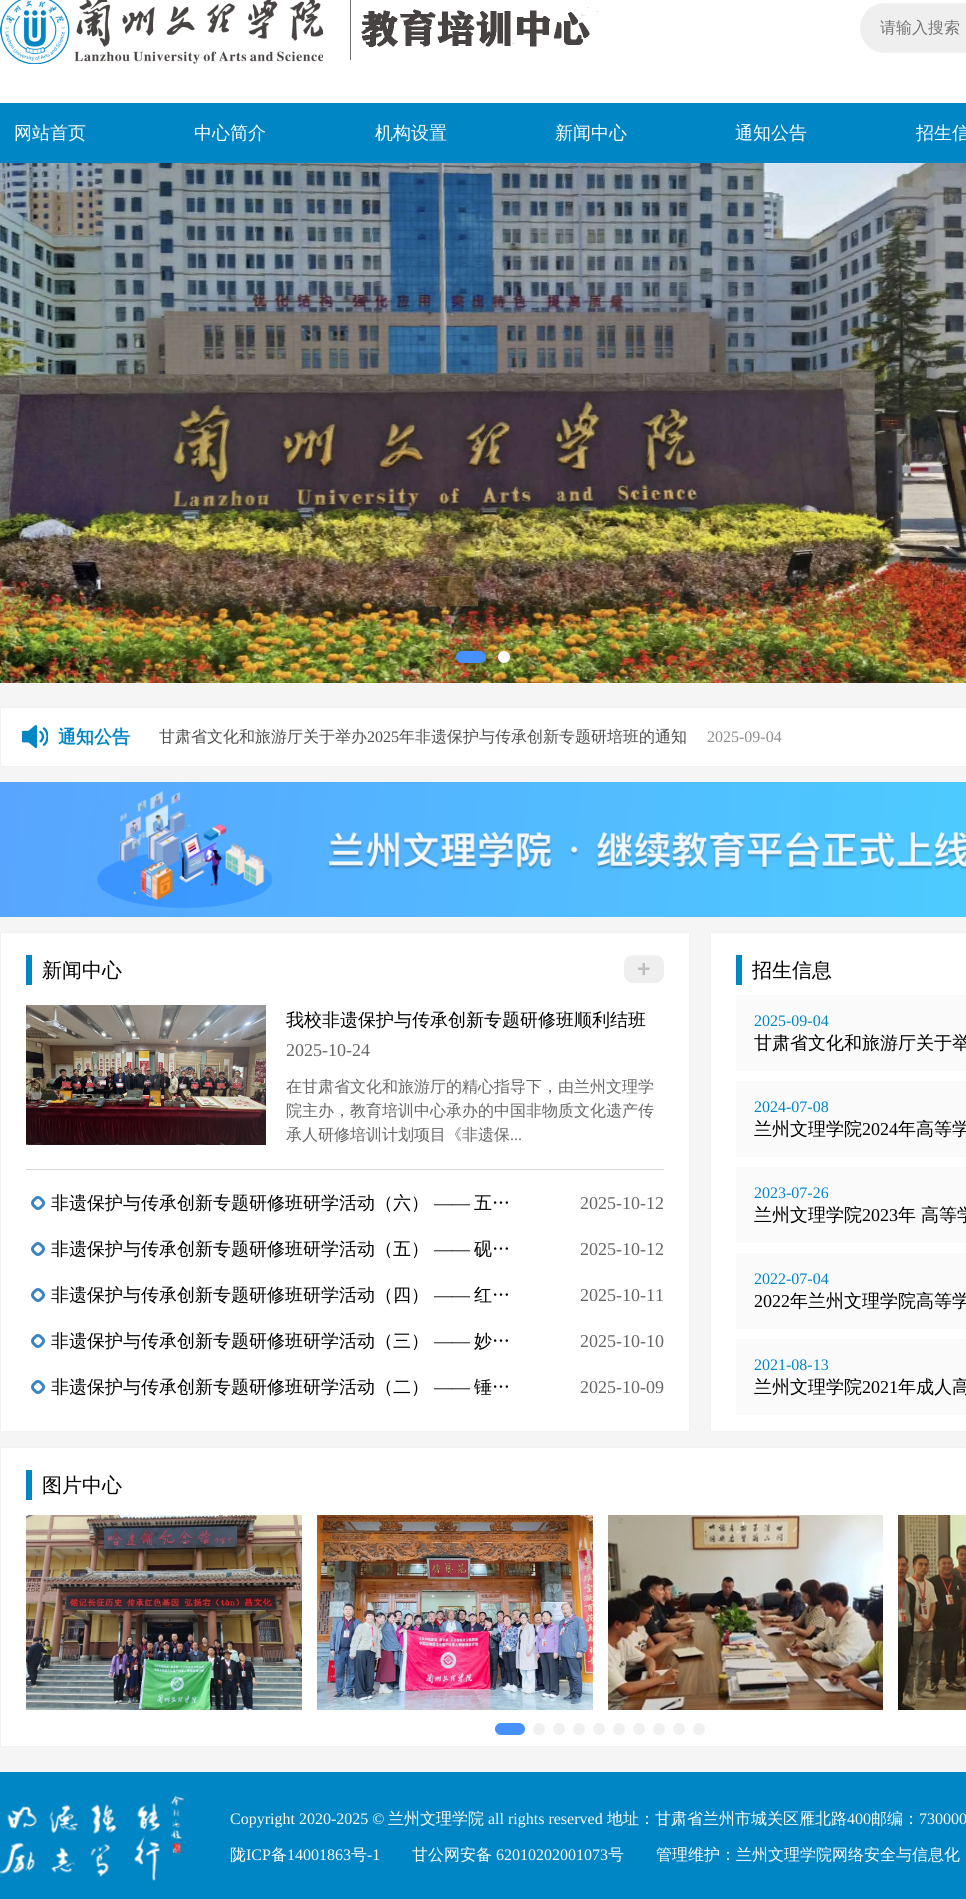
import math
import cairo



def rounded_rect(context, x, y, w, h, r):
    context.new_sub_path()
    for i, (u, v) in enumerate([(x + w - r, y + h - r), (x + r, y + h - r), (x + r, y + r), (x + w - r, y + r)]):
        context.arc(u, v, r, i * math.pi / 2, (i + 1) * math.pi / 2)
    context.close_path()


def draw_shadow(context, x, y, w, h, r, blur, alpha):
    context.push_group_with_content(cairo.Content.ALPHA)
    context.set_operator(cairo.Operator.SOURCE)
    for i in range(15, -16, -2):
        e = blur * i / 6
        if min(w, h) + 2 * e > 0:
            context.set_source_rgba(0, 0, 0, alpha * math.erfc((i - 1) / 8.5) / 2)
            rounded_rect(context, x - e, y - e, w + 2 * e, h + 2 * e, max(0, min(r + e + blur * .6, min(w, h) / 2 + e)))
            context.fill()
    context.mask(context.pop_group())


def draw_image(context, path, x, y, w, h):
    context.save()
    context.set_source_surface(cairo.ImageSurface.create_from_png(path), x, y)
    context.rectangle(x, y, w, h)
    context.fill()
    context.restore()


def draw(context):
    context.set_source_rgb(245 / 255, 245 / 255, 245 / 255)
    context.paint()
    context.set_source_rgb(1, 1, 1)
    context.rectangle(0, 0, 966, 103)
    context.fill()
    draw_image(context, "images/1.png", 0, 0, 598, 64)
    context.set_source_rgb(239 / 255, 239 / 255, 239 / 255)
    rounded_rect(context, 860, 3, 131, 50, 25)
    context.fill()
    context.set_source_rgb(0, 134 / 255, 197 / 255)
    context.rectangle(0, 103, 966, 60)
    context.fill()
    draw_image(context, "images/2.png", 0, 163, 966, 520)
    context.set_source_rgb(0, 0, 0)
    draw_shadow(context, 456, 651, 30, 12, 6, 2.5, 0.3)
    context.set_source_rgb(70 / 255, 145 / 255, 1)
    rounded_rect(context, 456, 651, 30, 12, 6)
    context.fill()
    context.set_source_rgb(0, 0, 0)
    draw_shadow(context, 498, 651, 12, 12, 6, 2.5, 0.3)
    context.set_source_rgb(1, 1, 1)
    context.arc(504, 657, 6, 0, 2 * math.pi)
    context.fill()
    context.rectangle(0.5, 707.5, 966, 59)
    context.fill_preserve()
    context.set_source_rgb(242 / 255, 242 / 255, 242 / 255)
    context.set_line_width(1)
    context.stroke()
    draw_image(context, "images/3.png", 22, 725, 26, 24)
    draw_image(context, "images/4.png", 0, 782, 966, 135)
    context.set_source_rgb(1, 1, 1)
    context.rectangle(0.5, 932.5, 689, 499)
    context.fill_preserve()
    context.set_source_rgb(242 / 255, 242 / 255, 242 / 255)
    context.stroke()
    context.set_source_rgb(0, 134 / 255, 197 / 255)
    context.rectangle(26, 955, 6, 30)
    context.fill()
    context.set_source_rgb(239 / 255, 239 / 255, 239 / 255)
    rounded_rect(context, 624, 955, 40, 28, 9)
    context.fill()
    context.set_source_rgb(191 / 255, 191 / 255, 191 / 255)
    context.new_path()
    context.move_to(649.5, 970)
    context.line_to(645, 970)
    context.line_to(645, 975)
    context.line_to(642.5, 975)
    context.line_to(642.5, 970)
    context.line_to(638, 970)
    context.line_to(638, 967.5)
    context.line_to(642.5, 967.5)
    context.line_to(642.5, 963)
    context.line_to(645, 963)
    context.line_to(645, 967.5)
    context.line_to(649.5, 967.5)
    context.close_path()
    context.fill()
    context.set_source_rgb(217 / 255, 217 / 255, 217 / 255)
    context.rectangle(26, 1169, 638, 1)
    context.fill()
    draw_image(context, "images/5.png", 26, 1005, 240, 140)
    draw_image(context, "images/6.png", 31, 1196, 14, 14)
    draw_image(context, "images/6.png", 31, 1242, 14, 14)
    draw_image(context, "images/6.png", 31, 1288, 14, 14)
    draw_image(context, "images/6.png", 31, 1334, 14, 14)
    draw_image(context, "images/6.png", 31, 1380, 14, 14)
    context.set_source_rgb(1, 1, 1)
    context.rectangle(710.5, 932.5, 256, 499)
    context.fill_preserve()
    context.set_source_rgb(242 / 255, 242 / 255, 242 / 255)
    context.stroke()
    context.set_source_rgb(0, 134 / 255, 197 / 255)
    context.rectangle(736, 955, 6, 30)
    context.fill()
    context.set_source_rgb(250 / 255, 250 / 255, 250 / 255)
    context.rectangle(736, 995, 230, 76)
    context.fill()
    context.rectangle(736, 1081, 230, 76)
    context.fill()
    context.rectangle(736, 1167, 230, 76)
    context.fill()
    context.rectangle(736, 1253, 230, 76)
    context.fill()
    context.rectangle(736, 1339, 230, 76)
    context.fill()
    context.set_source_rgb(1, 1, 1)
    context.rectangle(0.5, 1447.5, 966, 299)
    context.fill_preserve()
    context.set_source_rgb(242 / 255, 242 / 255, 242 / 255)
    context.stroke()
    context.set_source_rgb(0, 134 / 255, 197 / 255)
    context.rectangle(26, 1470, 6, 30)
    context.fill()
    draw_image(context, "images/7.png", 26, 1515, 276, 195)
    draw_image(context, "images/8.png", 317, 1515, 276, 195)
    draw_image(context, "images/9.png", 608, 1515, 275, 195)
    draw_image(context, "images/10.png", 898, 1515, 68, 195)
    context.set_source_rgb(70 / 255, 145 / 255, 1)
    rounded_rect(context, 495, 1723, 30, 12, 6)
    context.fill()
    context.set_source_rgb(241 / 255, 241 / 255, 241 / 255)
    context.arc(539, 1729, 6, 0, 2 * math.pi)
    context.fill()
    context.arc(559, 1729, 6, 0, 2 * math.pi)
    context.fill()
    context.arc(579, 1729, 6, 0, 2 * math.pi)
    context.fill()
    context.arc(599, 1729, 6, 0, 2 * math.pi)
    context.fill()
    context.arc(619, 1729, 6, 0, 2 * math.pi)
    context.fill()
    context.arc(639, 1729, 6, 0, 2 * math.pi)
    context.fill()
    context.arc(659, 1729, 6, 0, 2 * math.pi)
    context.fill()
    context.arc(679, 1729, 6, 0, 2 * math.pi)
    context.fill()
    context.arc(699, 1729, 6, 0, 2 * math.pi)
    context.fill()
    context.set_source_rgb(0, 134 / 255, 197 / 255)
    context.rectangle(0, 1772, 966, 127)
    context.fill()
    draw_image(context, "images/11.png", 0, 1796, 184, 85)
    context.select_font_face("WenQuanYi Zen Hei Medium")
    context.set_font_size(16)
    context.set_source_rgb(117 / 255, 117 / 255, 117 / 255)
    context.move_to(880, 33)
    context.show_text("请输入搜索")
    context.set_font_size(18)
    context.set_source_rgb(1, 1, 1)
    context.move_to(14, 139)
    context.show_text("网站首页")
    context.move_to(194, 139)
    context.show_text("中心简介")
    context.move_to(375, 139)
    context.show_text("机构设置")
    context.move_to(555, 139)
    context.show_text("新闻中心")
    context.move_to(735, 139)
    context.show_text("通知公告")
    context.move_to(916, 139)
    context.show_text("招生信")
    context.select_font_face("WenQuanYi Zen Hei", cairo.FontSlant.NORMAL, cairo.FontWeight.BOLD)
    context.set_source_rgb(0, 134 / 255, 197 / 255)
    context.move_to(58, 743)
    context.show_text("通知公告")
    context.select_font_face("WenQuanYi Zen Hei Medium")
    context.set_font_size(16)
    context.set_source_rgb(77 / 255, 77 / 255, 77 / 255)
    context.move_to(159, 742)
    context.show_text("甘肃省文化和旅游厅关于举办")
    context.select_font_face("Liberation Serif")
    context.move_to(367, 742)
    context.show_text("2025")
    context.select_font_face("WenQuanYi Zen Hei Medium")
    context.move_to(399, 742)
    context.show_text("年非遗保护与传承创新专题研培班的通知")
    context.select_font_face("Liberation Serif")
    context.set_source_rgb(141 / 255, 141 / 255, 141 / 255)
    context.move_to(707, 742)
    context.show_text("2025-09-04")
    context.select_font_face("WenQuanYi Zen Hei Medium")
    context.set_font_size(20)
    context.set_source_rgb(0, 0, 0)
    context.move_to(42, 977)
    context.show_text("新闻中心")
    context.set_font_size(18)
    context.move_to(286, 1026)
    context.show_text("我校非遗保护与传承创新专题研修班顺利结班")
    context.select_font_face("Liberation Serif")
    context.set_source_rgb(102 / 255, 102 / 255, 102 / 255)
    context.move_to(286, 1056)
    context.show_text("2025-10-24")
    context.select_font_face("WenQuanYi Zen Hei Medium")
    context.set_font_size(16)
    context.move_to(286, 1092)
    context.show_text("在甘肃省文化和旅游厅的精心指导下，由兰州文理学")
    context.move_to(286, 1116)
    context.show_text("院主办，教育培训中心承办的中国非物质文化遗产传")
    context.move_to(286, 1140)
    context.show_text("承人研修培训计划项目《非遗保")
    context.select_font_face("Liberation Serif")
    context.move_to(510, 1140)
    context.show_text("...")
    context.select_font_face("WenQuanYi Zen Hei Medium")
    context.set_font_size(18)
    context.set_source_rgb(0, 0, 0)
    context.move_to(51, 1209)
    context.show_text("非遗保护与传承创新专题研修班研学活动（六）")
    context.select_font_face("Liberation Serif")
    context.move_to(434, 1209)
    context.show_text("——")
    context.select_font_face("WenQuanYi Zen Hei Medium")
    context.move_to(474, 1209)
    context.show_text("五…")
    context.select_font_face("Liberation Serif")
    context.set_source_rgb(102 / 255, 102 / 255, 102 / 255)
    context.move_to(580, 1209)
    context.show_text("2025-10-12")
    context.select_font_face("WenQuanYi Zen Hei Medium")
    context.set_source_rgb(0, 0, 0)
    context.move_to(51, 1255)
    context.show_text("非遗保护与传承创新专题研修班研学活动（五）")
    context.select_font_face("Liberation Serif")
    context.move_to(434, 1255)
    context.show_text("——")
    context.select_font_face("WenQuanYi Zen Hei Medium")
    context.move_to(474, 1255)
    context.show_text("砚…")
    context.select_font_face("Liberation Serif")
    context.set_source_rgb(102 / 255, 102 / 255, 102 / 255)
    context.move_to(580, 1255)
    context.show_text("2025-10-12")
    context.select_font_face("WenQuanYi Zen Hei Medium")
    context.set_source_rgb(0, 0, 0)
    context.move_to(51, 1301)
    context.show_text("非遗保护与传承创新专题研修班研学活动（四）")
    context.select_font_face("Liberation Serif")
    context.move_to(434, 1301)
    context.show_text("——")
    context.select_font_face("WenQuanYi Zen Hei Medium")
    context.move_to(474, 1301)
    context.show_text("红…")
    context.select_font_face("Liberation Serif")
    context.set_source_rgb(102 / 255, 102 / 255, 102 / 255)
    context.move_to(580, 1301)
    context.show_text("2025-10-11")
    context.select_font_face("WenQuanYi Zen Hei Medium")
    context.set_source_rgb(0, 0, 0)
    context.move_to(51, 1347)
    context.show_text("非遗保护与传承创新专题研修班研学活动（三）")
    context.select_font_face("Liberation Serif")
    context.move_to(434, 1347)
    context.show_text("——")
    context.select_font_face("WenQuanYi Zen Hei Medium")
    context.move_to(474, 1347)
    context.show_text("妙…")
    context.select_font_face("Liberation Serif")
    context.set_source_rgb(102 / 255, 102 / 255, 102 / 255)
    context.move_to(580, 1347)
    context.show_text("2025-10-10")
    context.select_font_face("WenQuanYi Zen Hei Medium")
    context.set_source_rgb(0, 0, 0)
    context.move_to(51, 1393)
    context.show_text("非遗保护与传承创新专题研修班研学活动（二）")
    context.select_font_face("Liberation Serif")
    context.move_to(434, 1393)
    context.show_text("——")
    context.select_font_face("WenQuanYi Zen Hei Medium")
    context.move_to(474, 1393)
    context.show_text("锤…")
    context.select_font_face("Liberation Serif")
    context.set_source_rgb(102 / 255, 102 / 255, 102 / 255)
    context.move_to(580, 1393)
    context.show_text("2025-10-09")
    context.select_font_face("WenQuanYi Zen Hei Medium")
    context.set_font_size(20)
    context.set_source_rgb(0, 0, 0)
    context.move_to(752, 977)
    context.show_text("招生信息")
    context.select_font_face("Liberation Serif")
    context.set_font_size(16)
    context.set_source_rgb(0, 134 / 255, 197 / 255)
    context.move_to(754, 1026)
    context.show_text("2025-09-04")
    context.select_font_face("WenQuanYi Zen Hei Medium")
    context.set_font_size(18)
    context.set_source_rgb(0, 0, 0)
    context.move_to(754, 1049)
    context.show_text("甘肃省文化和旅游厅关于举")
    context.select_font_face("Liberation Serif")
    context.set_font_size(16)
    context.set_source_rgb(0, 134 / 255, 197 / 255)
    context.move_to(754, 1112)
    context.show_text("2024-07-08")
    context.select_font_face("WenQuanYi Zen Hei Medium")
    context.set_font_size(18)
    context.set_source_rgb(0, 0, 0)
    context.move_to(754, 1135)
    context.show_text("兰州文理学院")
    context.select_font_face("Liberation Serif")
    context.move_to(862, 1135)
    context.show_text("2024")
    context.select_font_face("WenQuanYi Zen Hei Medium")
    context.move_to(898, 1135)
    context.show_text("年高等学")
    context.select_font_face("Liberation Serif")
    context.set_font_size(16)
    context.set_source_rgb(0, 134 / 255, 197 / 255)
    context.move_to(754, 1198)
    context.show_text("2023-07-26")
    context.select_font_face("WenQuanYi Zen Hei Medium")
    context.set_font_size(18)
    context.set_source_rgb(0, 0, 0)
    context.move_to(754, 1221)
    context.show_text("兰州文理学院")
    context.select_font_face("Liberation Serif")
    context.move_to(862, 1221)
    context.show_text("2023")
    context.select_font_face("WenQuanYi Zen Hei Medium")
    context.move_to(898, 1221)
    context.show_text("年")
    context.move_to(921, 1221)
    context.show_text("高等学")
    context.select_font_face("Liberation Serif")
    context.set_font_size(16)
    context.set_source_rgb(0, 134 / 255, 197 / 255)
    context.move_to(754, 1284)
    context.show_text("2022-07-04")
    context.set_font_size(18)
    context.set_source_rgb(0, 0, 0)
    context.move_to(754, 1307)
    context.show_text("2022")
    context.select_font_face("WenQuanYi Zen Hei Medium")
    context.move_to(790, 1307)
    context.show_text("年兰州文理学院高等学")
    context.select_font_face("Liberation Serif")
    context.set_font_size(16)
    context.set_source_rgb(0, 134 / 255, 197 / 255)
    context.move_to(754, 1370)
    context.show_text("2021-08-13")
    context.select_font_face("WenQuanYi Zen Hei Medium")
    context.set_font_size(18)
    context.set_source_rgb(0, 0, 0)
    context.move_to(754, 1393)
    context.show_text("兰州文理学院")
    context.select_font_face("Liberation Serif")
    context.move_to(862, 1393)
    context.show_text("2021")
    context.select_font_face("WenQuanYi Zen Hei Medium")
    context.move_to(898, 1393)
    context.show_text("年成人高")
    context.set_font_size(20)
    context.move_to(42, 1492)
    context.show_text("图片中心")
    context.select_font_face("Liberation Serif")
    context.set_font_size(16)
    context.set_source_rgb(1, 1, 1)
    context.move_to(230, 1824)
    context.show_text("Copyright 2020-2025 ©")
    context.select_font_face("WenQuanYi Zen Hei Medium")
    context.move_to(388, 1824)
    context.show_text("兰州文理学院")
    context.select_font_face("Liberation Serif")
    context.move_to(488, 1824)
    context.show_text("all rights reserved")
    context.select_font_face("WenQuanYi Zen Hei Medium")
    context.move_to(607, 1824)
    context.show_text("地址：甘肃省兰州市城关区雁北路")
    context.select_font_face("Liberation Serif")
    context.move_to(847, 1824)
    context.show_text("400")
    context.select_font_face("WenQuanYi Zen Hei Medium")
    context.move_to(871, 1824)
    context.show_text("邮编：")
    context.select_font_face("Liberation Serif")
    context.move_to(919, 1824)
    context.show_text("730000")
    context.select_font_face("WenQuanYi Zen Hei Medium")
    context.move_to(230, 1860)
    context.show_text("陇")
    context.select_font_face("Liberation Serif")
    context.move_to(246, 1860)
    context.show_text("ICP")
    context.select_font_face("WenQuanYi Zen Hei Medium")
    context.move_to(271, 1860)
    context.show_text("备")
    context.select_font_face("Liberation Serif")
    context.move_to(287, 1860)
    context.show_text("14001863")
    context.select_font_face("WenQuanYi Zen Hei Medium")
    context.move_to(351, 1860)
    context.show_text("号")
    context.select_font_face("Liberation Serif")
    context.move_to(367, 1860)
    context.show_text("-1")
    context.select_font_face("WenQuanYi Zen Hei Medium")
    context.move_to(412, 1860)
    context.show_text("甘公网安备")
    context.select_font_face("Liberation Serif")
    context.move_to(496, 1860)
    context.show_text("62010202001073")
    context.select_font_face("WenQuanYi Zen Hei Medium")
    context.move_to(608, 1860)
    context.show_text("号")
    context.move_to(656, 1860)
    context.show_text("管理维护：兰州文理学院网络安全与信息化")


surface = cairo.ImageSurface(cairo.Format.RGB24, 966, 1899)
context = cairo.Context(surface)
options = cairo.FontOptions()
options.set_hint_metrics(cairo.HintMetrics.OFF)
options.set_hint_style(cairo.HintStyle.NONE)
context.set_font_options(options)
context.set_miter_limit(4)
draw(context)
surface.write_to_png("out.png")
